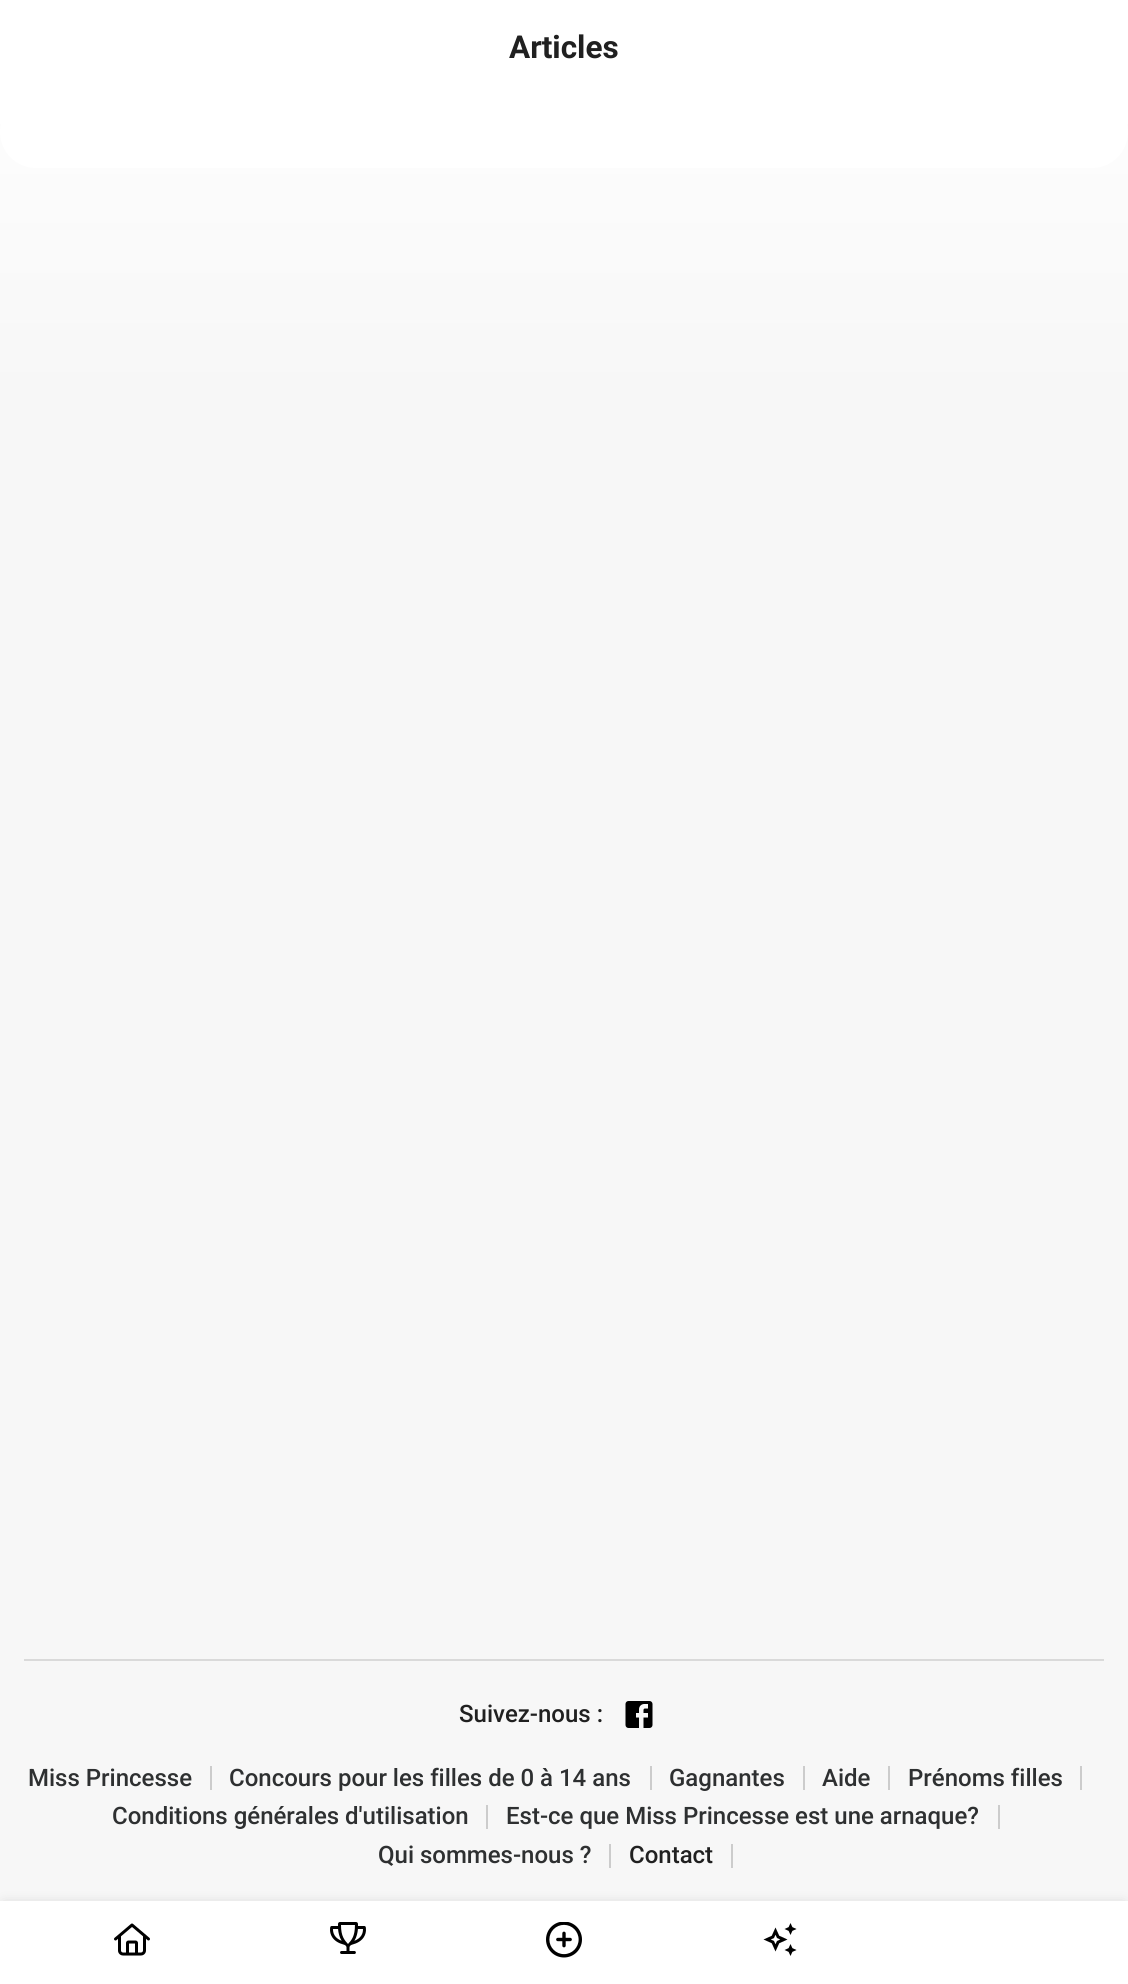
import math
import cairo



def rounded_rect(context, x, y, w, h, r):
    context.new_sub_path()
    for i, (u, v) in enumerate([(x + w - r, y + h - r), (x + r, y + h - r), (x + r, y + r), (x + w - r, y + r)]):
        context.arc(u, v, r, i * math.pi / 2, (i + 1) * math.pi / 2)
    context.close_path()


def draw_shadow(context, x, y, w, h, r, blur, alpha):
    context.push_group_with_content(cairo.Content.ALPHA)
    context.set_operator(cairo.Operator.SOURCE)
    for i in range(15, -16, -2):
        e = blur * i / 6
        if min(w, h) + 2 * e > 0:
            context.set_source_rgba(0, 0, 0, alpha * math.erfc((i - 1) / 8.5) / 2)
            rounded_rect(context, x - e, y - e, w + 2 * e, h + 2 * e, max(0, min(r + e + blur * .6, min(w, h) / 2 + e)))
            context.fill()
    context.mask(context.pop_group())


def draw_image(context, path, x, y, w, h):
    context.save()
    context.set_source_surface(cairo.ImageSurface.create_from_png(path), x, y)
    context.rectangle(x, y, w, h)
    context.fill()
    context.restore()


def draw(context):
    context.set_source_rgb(1, 1, 1)
    context.paint()
    gradient = cairo.LinearGradient(564, 0, 564, 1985)
    gradient.add_color_stop_rgba(0, 1, 1, 1, 1)
    gradient.add_color_stop_rgba(0.2, 247 / 255, 247 / 255, 247 / 255, 1)
    context.set_source(gradient)
    context.rectangle(0, 124, 1128, 1777)
    context.fill()
    context.set_source_rgb(1, 1, 1)
    rounded_rect(context, 0, 96, 1128, 72, 36)
    context.fill()
    context.set_source_rgb(218 / 255, 218 / 255, 218 / 255)
    context.rectangle(24, 1659, 1080, 2)
    context.fill()
    draw_image(context, "images/1.png", 625, 1701, 28, 27)
    context.set_source_rgb(204 / 255, 204 / 255, 204 / 255)
    context.rectangle(210, 1766, 2, 24)
    context.fill()
    context.rectangle(650, 1766, 2, 24)
    context.fill()
    context.rectangle(803, 1766, 2, 24)
    context.fill()
    context.rectangle(888, 1766, 2, 24)
    context.fill()
    context.rectangle(1080, 1766, 2, 24)
    context.fill()
    context.rectangle(486, 1805, 2, 24)
    context.fill()
    context.rectangle(998, 1805, 2, 24)
    context.fill()
    context.rectangle(609, 1844, 2, 24)
    context.fill()
    context.rectangle(731, 1844, 2, 24)
    context.fill()
    context.set_source_rgb(0, 0, 0)
    draw_shadow(context, 0, 1902, 1128, 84, 5, 6, 0.12)
    context.set_source_rgb(1, 1, 1)
    context.rectangle(0, 1901, 1128, 83)
    context.fill()
    draw_image(context, "images/2.png", 114, 1923, 36, 33)
    draw_image(context, "images/3.png", 330, 1922, 36, 32)
    draw_image(context, "images/4.png", 546, 1922, 36, 36)
    draw_image(context, "images/5.png", 763, 1923, 34, 33)
    context.select_font_face("Roboto", cairo.FontSlant.NORMAL, cairo.FontWeight.BOLD)
    context.set_font_size(31.5)
    context.set_source_rgb(32 / 255, 32 / 255, 32 / 255)
    context.move_to(509, 58)
    context.show_text("Articles")
    context.select_font_face("Roboto Medium")
    context.set_font_size(24)
    context.move_to(459, 1722)
    context.show_text("Suivez-nous :")
    context.set_source_rgb(46 / 255, 48 / 255, 49 / 255)
    context.move_to(28, 1786)
    context.show_text("Miss Princesse")
    context.move_to(229, 1786)
    context.show_text("Concours pour les filles de 0 à 14 ans")
    context.move_to(669, 1786)
    context.show_text("Gagnantes")
    context.move_to(822, 1786)
    context.show_text("Aide")
    context.move_to(908, 1786)
    context.show_text("Prénoms filles")
    context.move_to(112, 1824)
    context.show_text("Conditions générales d'utilisation")
    context.move_to(506, 1824)
    context.show_text("Est-ce que Miss Princesse est une arnaque?")
    context.move_to(378, 1863)
    context.show_text("Qui sommes-nous ?")
    context.set_source_rgb(32 / 255, 32 / 255, 32 / 255)
    context.move_to(629, 1863)
    context.show_text("Contact")


surface = cairo.ImageSurface(cairo.Format.RGB24, 1128, 1984)
context = cairo.Context(surface)
options = cairo.FontOptions()
options.set_hint_metrics(cairo.HintMetrics.OFF)
options.set_hint_style(cairo.HintStyle.NONE)
context.set_font_options(options)
context.set_miter_limit(4)
draw(context)
surface.write_to_png("out.png")
